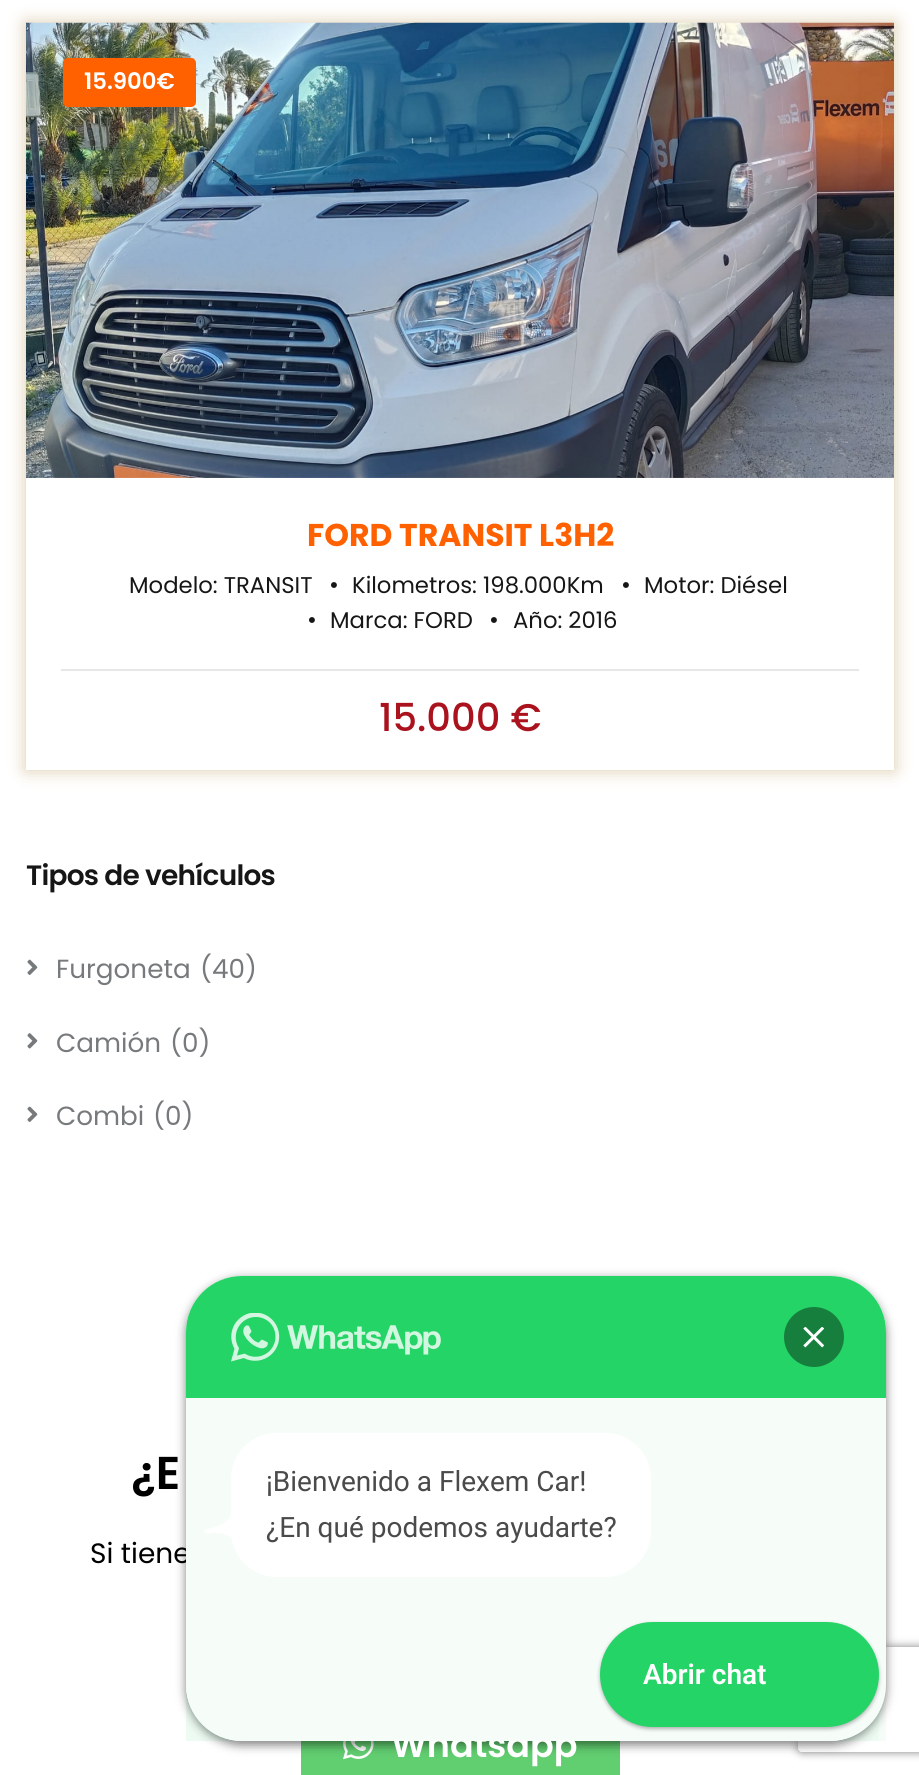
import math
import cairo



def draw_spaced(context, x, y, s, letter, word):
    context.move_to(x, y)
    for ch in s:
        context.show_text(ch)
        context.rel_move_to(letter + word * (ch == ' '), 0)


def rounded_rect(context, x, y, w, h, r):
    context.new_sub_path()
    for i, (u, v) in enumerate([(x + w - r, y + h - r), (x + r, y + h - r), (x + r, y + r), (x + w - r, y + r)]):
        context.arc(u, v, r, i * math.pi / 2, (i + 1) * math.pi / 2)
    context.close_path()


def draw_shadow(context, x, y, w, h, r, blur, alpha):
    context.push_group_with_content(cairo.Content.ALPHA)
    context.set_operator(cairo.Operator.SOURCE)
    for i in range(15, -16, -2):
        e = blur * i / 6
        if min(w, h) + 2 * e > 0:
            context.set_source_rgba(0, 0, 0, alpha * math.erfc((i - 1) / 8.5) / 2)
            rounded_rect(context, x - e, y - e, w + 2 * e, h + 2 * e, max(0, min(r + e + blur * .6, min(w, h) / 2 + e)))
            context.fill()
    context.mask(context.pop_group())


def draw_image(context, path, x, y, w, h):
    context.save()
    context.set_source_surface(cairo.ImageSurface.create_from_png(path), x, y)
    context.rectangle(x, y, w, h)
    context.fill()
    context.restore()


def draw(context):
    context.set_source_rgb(1, 1, 1)
    context.paint()
    context.set_source_rgb(179 / 255, 145 / 255, 72 / 255)
    draw_shadow(context, 26, 23, 868, 747, 0, 9, 0.46)
    context.set_source_rgb(1, 1, 1)
    context.rectangle(26, 477, 868, 293)
    context.fill()
    draw_image(context, "images/1.png", 26, 22, 868, 456)
    draw_image(context, "images/2.png", 26, 23, 868, 455)
    context.set_source_rgb(1, 97 / 255, 0)
    rounded_rect(context, 63, 58, 133, 49, 5)
    context.fill()
    context.set_source_rgb(231 / 255, 231 / 255, 231 / 255)
    context.rectangle(61, 669, 798, 2)
    context.fill()
    draw_image(context, "images/3.png", 27, 959, 11, 16)
    draw_image(context, "images/4.png", 27, 1033, 11, 16)
    draw_image(context, "images/3.png", 27, 1106, 11, 16)
    context.set_source_rgb(97 / 255, 206 / 255, 112 / 255)
    context.rectangle(301, 1741, 319, 34)
    context.fill()
    draw_image(context, "images/5.png", 343, 1741, 31, 19)
    context.set_source_rgb(0, 0, 0)
    draw_shadow(context, 186, 1279, 700, 466, 56, 5, 0.5)
    context.save()
    context.set_fill_rule(cairo.FillRule.EVEN_ODD)
    context.new_path()
    context.move_to(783, 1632)
    context.line_to(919, 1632)
    context.line_to(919, 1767)
    context.line_to(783, 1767)
    context.close_path()
    context.move_to(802, 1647)
    context.line_to(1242, 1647)
    context.curve_to(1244, 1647, 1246, 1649, 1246, 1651)
    context.line_to(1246, 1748)
    context.curve_to(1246, 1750, 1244, 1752, 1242, 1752)
    context.line_to(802, 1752)
    context.curve_to(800, 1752, 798, 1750, 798, 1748)
    context.line_to(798, 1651)
    context.curve_to(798, 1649, 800, 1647, 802, 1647)
    context.close_path()
    context.clip()
    context.set_source_rgb(128 / 255, 128 / 255, 128 / 255)
    draw_shadow(context, 798, 1647, 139, 105, 4, 4.5, 1)
    context.restore()
    context.select_font_face("Poppins SemiBold")
    context.set_font_size(22.75)
    context.set_source_rgb(1, 1, 1)
    context.move_to(84, 89)
    context.show_text("15.900€")
    context.select_font_face("Poppins", cairo.FontSlant.NORMAL, cairo.FontWeight.BOLD)
    context.set_font_size(31.5)
    context.set_source_rgb(1, 97 / 255, 0)
    context.move_to(307, 546)
    context.show_text("FORD TRANSIT L3H2")
    context.select_font_face("Poppins")
    context.set_font_size(22.75)
    context.set_source_rgb(22 / 255, 22 / 255, 22 / 255)
    context.move_to(129, 593)
    context.show_text("Modelo: TRANSIT")
    context.set_font_size(24)
    context.move_to(329, 593)
    context.show_text("•")
    context.set_font_size(22.75)
    context.move_to(352, 593)
    context.show_text("Kilometros: 198.000Km")
    context.set_font_size(24)
    context.move_to(621, 593)
    context.show_text("•")
    context.set_font_size(22.75)
    context.move_to(644, 593)
    context.show_text("Motor: Diésel")
    context.set_font_size(24)
    context.move_to(307, 628)
    context.show_text("•")
    context.set_font_size(22.75)
    context.move_to(330, 628)
    context.show_text("Marca: FORD")
    context.set_font_size(24)
    context.move_to(489, 628)
    context.show_text("•")
    context.set_font_size(22.75)
    context.move_to(513, 628)
    context.show_text("Año: 2016")
    context.select_font_face("Poppins Medium")
    context.set_font_size(38.5)
    context.set_source_rgb(170 / 255, 18 / 255, 29 / 255)
    context.move_to(379, 731)
    context.show_text("15.000 €")
    context.select_font_face("Poppins SemiBold")
    context.set_font_size(28)
    context.set_source_rgb(22 / 255, 22 / 255, 22 / 255)
    draw_spaced(context, 26, 885, "Tipos de vehículos", -0.75, 0)
    context.select_font_face("Poppins")
    context.set_font_size(26.25)
    context.set_source_rgb(119 / 255, 122 / 255, 124 / 255)
    context.move_to(56, 978)
    context.show_text("Furgoneta")
    context.move_to(200, 978)
    context.show_text("(40)")
    context.move_to(56, 1052)
    context.show_text("Camión")
    context.move_to(170, 1052)
    context.show_text("(0)")
    context.move_to(56, 1125)
    context.show_text("Combi")
    context.move_to(153, 1125)
    context.show_text("(0)")
    context.select_font_face("Poppins SemiBold")
    context.set_font_size(46)
    context.set_source_rgb(0, 0, 0)
    context.move_to(131, 1489)
    context.show_text("¿E")
    context.select_font_face("Poppins")
    context.set_font_size(28)
    context.move_to(90, 1563)
    context.show_text("Si tiene")
    context.select_font_face("Poppins SemiBold")
    context.set_font_size(35)
    context.set_source_rgb(1, 1, 1)
    context.move_to(391, 1757)
    context.show_text("Whatsapp")
    rounded_rect(context, 186, 1276, 700, 465, 56)
    context.fill()
    context.set_source_rgb(37 / 255, 212 / 255, 102 / 255)
    context.new_path()
    context.move_to(242, 1276)
    context.line_to(830, 1276)
    context.curve_to(861, 1276, 886, 1301, 886, 1332)
    context.line_to(886, 1398)
    context.line_to(186, 1398)
    context.line_to(186, 1332)
    context.curve_to(186, 1301, 211, 1276, 242, 1276)
    context.close_path()
    context.fill()
    context.set_source_rgba(37 / 255, 212 / 255, 102 / 255, 0.04)
    context.rectangle(186, 1398, 700, 343)
    context.fill()
    draw_image(context, "images/6.png", 231, 1313, 210, 49)
    context.set_source_rgb(22 / 255, 127 / 255, 61 / 255)
    context.arc(814, 1337, 30, 0, 2 * math.pi)
    context.fill()
    draw_image(context, "images/7.png", 803, 1327, 21, 21)
    context.set_source_rgb(1, 1, 1)
    rounded_rect(context, 231, 1433, 420, 144, 46)
    context.fill()
    context.select_font_face("Roboto")
    context.set_font_size(28)
    context.set_source_rgb(74 / 255, 74 / 255, 74 / 255)
    context.move_to(266, 1491)
    context.show_text("¡Bienvenido a Flexem Car!")
    context.set_source_rgb(1, 1, 1)
    context.new_path()
    context.move_to(234, 1502)
    context.line_to(234, 1545)
    context.curve_to(234, 1534, 221, 1533, 213, 1533)
    context.line_to(206, 1533)
    context.curve_to(200, 1530, 209, 1529, 215, 1527)
    context.curve_to(227, 1524, 234, 1515, 234, 1502)
    context.close_path()
    context.fill()
    context.set_source_rgb(74 / 255, 74 / 255, 74 / 255)
    context.move_to(266, 1537)
    context.show_text("¿En qué podemos ayudarte?")
    context.save()
    rounded_rect(context, 186, 1276, 700, 465, 56)
    context.clip()
    context.set_source_rgb(1, 1, 1)
    context.new_path()
    context.move_to(186, 1601)
    context.line_to(879, 1601)
    context.line_to(879, 1741)
    context.line_to(242, 1741)
    context.curve_to(211, 1741, 186, 1716, 186, 1685)
    context.close_path()
    context.fill()
    context.restore()
    context.set_source_rgba(37 / 255, 212 / 255, 102 / 255, 0.04)
    context.rectangle(186, 1601, 693, 140)
    context.fill()
    context.set_source_rgb(0, 0, 0)
    draw_shadow(context, 600, 1624, 279, 105, 52.5, 2, 0.3)
    context.set_source_rgb(37 / 255, 212 / 255, 102 / 255)
    rounded_rect(context, 600, 1622, 279, 105, 52.5)
    context.fill()
    context.select_font_face("Roboto SemiBold")
    context.set_source_rgb(1, 1, 1)
    context.move_to(643, 1684)
    context.show_text("Abrir chat")


surface = cairo.ImageSurface(cairo.Format.RGB24, 919, 1775)
context = cairo.Context(surface)
options = cairo.FontOptions()
options.set_hint_metrics(cairo.HintMetrics.OFF)
options.set_hint_style(cairo.HintStyle.NONE)
context.set_font_options(options)
context.set_miter_limit(4)
draw(context)
surface.write_to_png("out.png")
